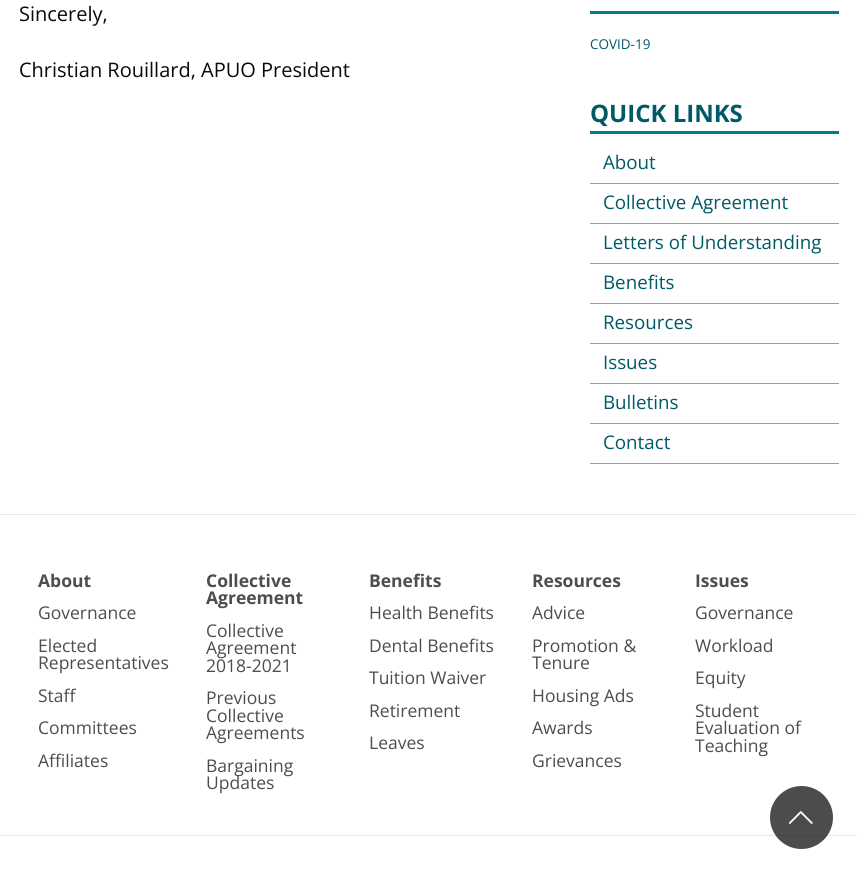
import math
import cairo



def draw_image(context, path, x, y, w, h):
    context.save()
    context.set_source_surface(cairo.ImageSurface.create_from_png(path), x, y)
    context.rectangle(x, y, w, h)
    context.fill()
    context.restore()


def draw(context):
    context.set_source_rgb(1, 1, 1)
    context.paint()
    context.set_source_rgb(0, 124 / 255, 140 / 255)
    context.rectangle(590, 11, 249, 3)
    context.fill()
    context.rectangle(590, 131, 249, 3)
    context.fill()
    context.set_source_rgb(156 / 255, 156 / 255, 156 / 255)
    context.rectangle(590, 183, 249, 1)
    context.fill()
    context.rectangle(590, 223, 249, 1)
    context.fill()
    context.rectangle(590, 263, 249, 1)
    context.fill()
    context.rectangle(590, 303, 249, 1)
    context.fill()
    context.rectangle(590, 343, 249, 1)
    context.fill()
    context.rectangle(590, 383, 249, 1)
    context.fill()
    context.rectangle(590, 423, 249, 1)
    context.fill()
    context.rectangle(590, 463, 249, 1)
    context.fill()
    context.set_source_rgb(230 / 255, 230 / 255, 230 / 255)
    context.rectangle(0, 514, 857, 1)
    context.fill()
    context.rectangle(0, 835, 857, 1)
    context.fill()
    context.set_source_rgba(0, 0, 0, 0.7)
    context.arc(801.5, 817.5, 31.5, 0, 2 * math.pi)
    context.fill()
    draw_image(context, "images/1.png", 788, 811, 25, 13)
    context.select_font_face("Open Sans")
    context.set_font_size(20)
    context.set_source_rgb(10 / 255, 10 / 255, 10 / 255)
    context.move_to(19, 21)
    context.show_text("Sincerely,")
    context.move_to(19, 77)
    context.show_text("Christian Rouillard, APUO President")
    context.set_font_size(13.5)
    context.set_source_rgb(0, 89 / 255, 102 / 255)
    context.move_to(590, 49)
    context.show_text("COVID-19")
    context.select_font_face("Open Sans", cairo.FontSlant.NORMAL, cairo.FontWeight.BOLD)
    context.set_font_size(24)
    context.move_to(590, 122)
    context.show_text("QUICK LINKS")
    context.select_font_face("Open Sans")
    context.set_font_size(18.75)
    context.move_to(603, 169)
    context.show_text("About")
    context.move_to(603, 209)
    context.show_text("Collective Agreement")
    context.move_to(603, 249)
    context.show_text("Letters of Understanding")
    context.move_to(603, 289)
    context.show_text("Benefits")
    context.move_to(603, 329)
    context.show_text("Resources")
    context.move_to(603, 369)
    context.show_text("Issues")
    context.move_to(603, 409)
    context.show_text("Bulletins")
    context.move_to(603, 449)
    context.show_text("Contact")
    context.select_font_face("Open Sans", cairo.FontSlant.NORMAL, cairo.FontWeight.BOLD)
    context.set_font_size(17.5)
    context.set_source_rgb(76 / 255, 77 / 255, 79 / 255)
    context.move_to(38, 587)
    context.show_text("About")
    context.select_font_face("Open Sans")
    context.move_to(38, 619)
    context.show_text("Governance")
    context.move_to(38, 652)
    context.show_text("Elected")
    context.move_to(38, 669)
    context.show_text("Representatives")
    context.move_to(38, 702)
    context.show_text("Staff")
    context.move_to(38, 734)
    context.show_text("Committees")
    context.move_to(38, 767)
    context.show_text("Affiliates")
    context.select_font_face("Open Sans", cairo.FontSlant.NORMAL, cairo.FontWeight.BOLD)
    context.move_to(206, 587)
    context.show_text("Collective")
    context.move_to(206, 604)
    context.show_text("Agreement")
    context.select_font_face("Open Sans")
    context.move_to(206, 637)
    context.show_text("Collective")
    context.move_to(206, 654)
    context.show_text("Agreement")
    context.move_to(206, 672)
    context.show_text("2018-2021")
    context.move_to(206, 704)
    context.show_text("Previous")
    context.move_to(206, 722)
    context.show_text("Collective")
    context.move_to(206, 739)
    context.show_text("Agreements")
    context.move_to(206, 772)
    context.show_text("Bargaining")
    context.move_to(206, 789)
    context.show_text("Updates")
    context.select_font_face("Open Sans", cairo.FontSlant.NORMAL, cairo.FontWeight.BOLD)
    context.move_to(369, 587)
    context.show_text("Benefits")
    context.select_font_face("Open Sans")
    context.move_to(369, 619)
    context.show_text("Health Benefits")
    context.move_to(369, 652)
    context.show_text("Dental Benefits")
    context.move_to(369, 684)
    context.show_text("Tuition Waiver")
    context.move_to(369, 717)
    context.show_text("Retirement")
    context.move_to(369, 749)
    context.show_text("Leaves")
    context.select_font_face("Open Sans", cairo.FontSlant.NORMAL, cairo.FontWeight.BOLD)
    context.move_to(532, 587)
    context.show_text("Resources")
    context.select_font_face("Open Sans")
    context.move_to(532, 619)
    context.show_text("Advice")
    context.move_to(532, 652)
    context.show_text("Promotion &")
    context.move_to(532, 669)
    context.show_text("Tenure")
    context.move_to(532, 702)
    context.show_text("Housing Ads")
    context.move_to(532, 734)
    context.show_text("Awards")
    context.move_to(532, 767)
    context.show_text("Grievances")
    context.select_font_face("Open Sans", cairo.FontSlant.NORMAL, cairo.FontWeight.BOLD)
    context.move_to(695, 587)
    context.show_text("Issues")
    context.select_font_face("Open Sans")
    context.move_to(695, 619)
    context.show_text("Governance")
    context.move_to(695, 652)
    context.show_text("Workload")
    context.move_to(695, 684)
    context.show_text("Equity")
    context.move_to(695, 717)
    context.show_text("Student")
    context.move_to(695, 734)
    context.show_text("Evaluation of")
    context.move_to(695, 752)
    context.show_text("Teaching")


surface = cairo.ImageSurface(cairo.Format.RGB24, 857, 873)
context = cairo.Context(surface)
options = cairo.FontOptions()
options.set_hint_metrics(cairo.HintMetrics.OFF)
options.set_hint_style(cairo.HintStyle.NONE)
context.set_font_options(options)
context.set_miter_limit(4)
draw(context)
surface.write_to_png("out.png")
